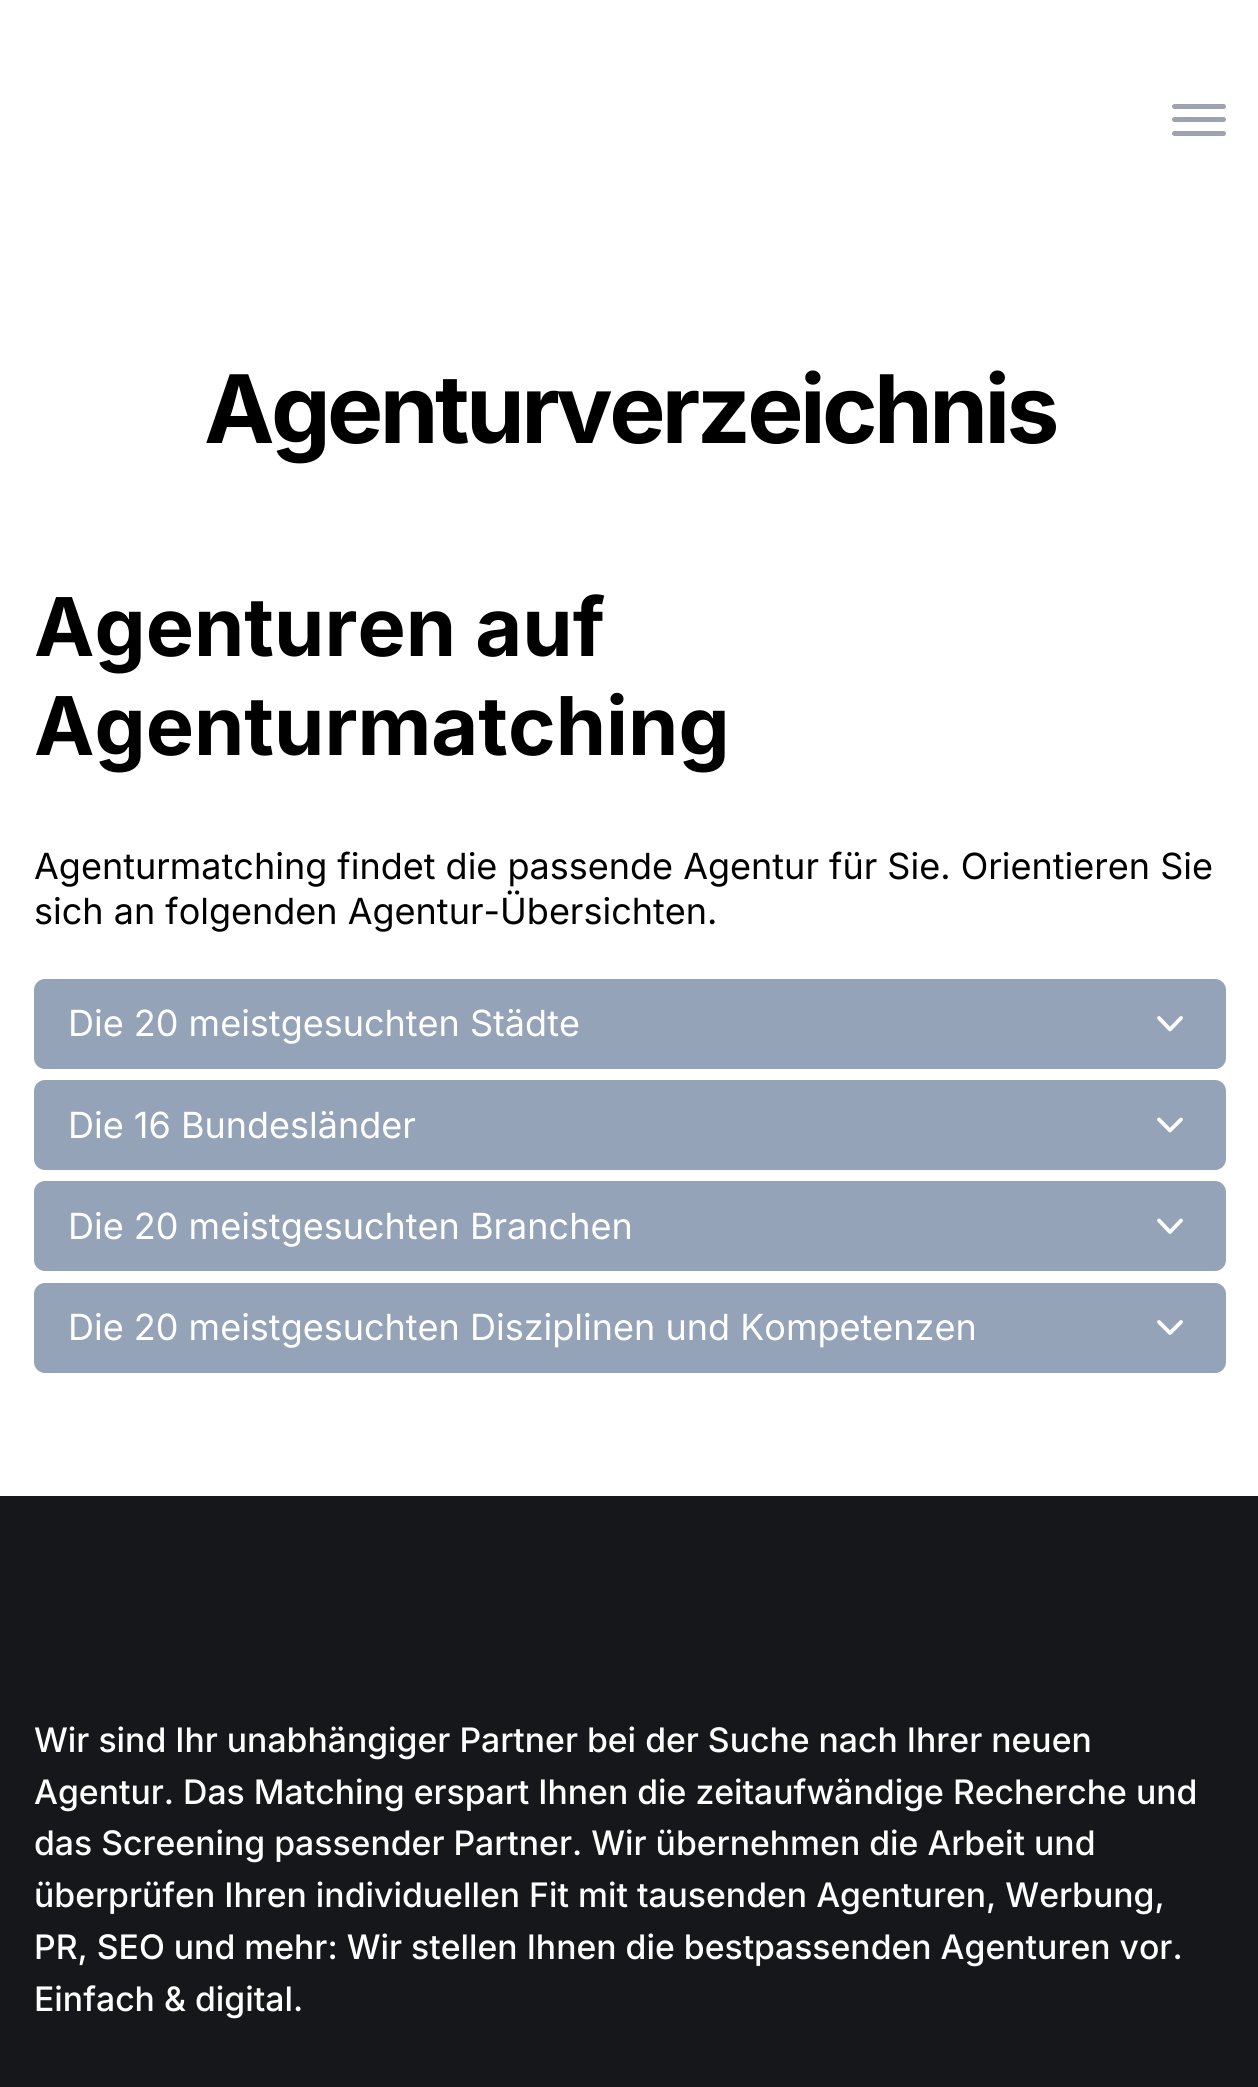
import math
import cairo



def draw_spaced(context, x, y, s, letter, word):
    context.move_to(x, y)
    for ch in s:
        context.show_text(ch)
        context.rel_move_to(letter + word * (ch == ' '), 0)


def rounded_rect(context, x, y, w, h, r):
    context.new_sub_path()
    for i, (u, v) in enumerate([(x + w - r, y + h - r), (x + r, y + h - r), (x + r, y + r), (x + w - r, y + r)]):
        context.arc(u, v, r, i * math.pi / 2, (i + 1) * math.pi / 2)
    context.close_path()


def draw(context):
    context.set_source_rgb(1, 1, 1)
    context.paint()
    context.set_source_rgb(156 / 255, 163 / 255, 175 / 255)
    rounded_rect(context, 1172, 117, 54, 5, 2.5)
    context.fill()
    rounded_rect(context, 1172, 104, 54, 5, 2.5)
    context.fill()
    rounded_rect(context, 1172, 131, 54, 5, 2.5)
    context.fill()
    context.set_source_rgb(148 / 255, 163 / 255, 184 / 255)
    rounded_rect(context, 34, 979, 1192, 90, 11)
    context.fill()
    context.new_path()
    context.move_to(1159, 1018)
    context.line_to(1170, 1029.5)
    context.line_to(1181, 1018)
    context.set_source_rgb(1, 1, 1)
    context.set_line_width(3.8)
    context.set_line_cap(cairo.LineCap.ROUND)
    context.set_line_join(cairo.LineJoin.ROUND)
    context.stroke()
    context.set_source_rgb(148 / 255, 163 / 255, 184 / 255)
    rounded_rect(context, 34, 1080, 1192, 90, 11)
    context.fill()
    context.new_path()
    context.move_to(1159, 1119.5)
    context.line_to(1170, 1130.5)
    context.line_to(1181, 1119.5)
    context.set_source_rgb(1, 1, 1)
    context.stroke()
    context.set_source_rgb(148 / 255, 163 / 255, 184 / 255)
    rounded_rect(context, 34, 1181, 1192, 90, 11)
    context.fill()
    context.new_path()
    context.move_to(1159, 1220.5)
    context.line_to(1170, 1232)
    context.line_to(1181, 1220.5)
    context.set_source_rgb(1, 1, 1)
    context.stroke()
    context.set_source_rgb(148 / 255, 163 / 255, 184 / 255)
    rounded_rect(context, 34, 1283, 1192, 90, 11)
    context.fill()
    context.new_path()
    context.move_to(1159, 1322)
    context.line_to(1170, 1333)
    context.line_to(1181, 1322)
    context.set_source_rgb(1, 1, 1)
    context.stroke()
    context.set_source_rgb(21 / 255, 23 / 255, 26 / 255)
    context.rectangle(0, 1496, 1258, 591)
    context.fill()
    context.select_font_face("Inter", cairo.FontSlant.NORMAL, cairo.FontWeight.BOLD)
    context.set_font_size(94.5)
    context.set_source_rgb(0, 0, 0)
    draw_spaced(context, 204, 443, "Agenturverzeichnis", -3.6, 0)
    context.set_font_size(81)
    context.move_to(34, 656)
    context.show_text("Agenturen auf")
    context.move_to(34, 755)
    context.show_text("Agenturmatching")
    context.select_font_face("Inter")
    context.set_font_size(36)
    context.move_to(34, 879)
    context.show_text("Agenturmatching findet die passende Agentur für Sie. Orientieren Sie")
    context.move_to(34, 924)
    context.show_text("sich an folgenden Agentur-Übersichten.")
    context.set_source_rgb(1, 1, 1)
    context.move_to(68, 1036)
    context.show_text("Die 20 meistgesuchten Städte")
    context.move_to(68, 1138)
    context.show_text("Die 16 Bundesländer")
    context.move_to(68, 1239)
    context.show_text("Die 20 meistgesuchten Branchen")
    context.move_to(68, 1340)
    context.show_text("Die 20 meistgesuchten Disziplinen und Kompetenzen")
    context.select_font_face("Inter Medium")
    context.set_font_size(33.75)
    context.move_to(34, 1752)
    context.show_text("Wir sind Ihr unabhängiger Partner bei der Suche nach Ihrer neuen")
    context.move_to(34, 1804)
    context.show_text("Agentur. Das Matching erspart Ihnen die zeitaufwändige Recherche und")
    context.move_to(34, 1855)
    context.show_text("das Screening passender Partner. Wir übernehmen die Arbeit und")
    context.move_to(34, 1907)
    context.show_text("überprüfen Ihren individuellen Fit mit tausenden Agenturen, Werbung,")
    context.move_to(34, 1959)
    context.show_text("PR, SEO und mehr: Wir stellen Ihnen die bestpassenden Agenturen vor.")
    context.move_to(34, 2011)
    context.show_text("Einfach & digital.")


surface = cairo.ImageSurface(cairo.Format.RGB24, 1258, 2087)
context = cairo.Context(surface)
options = cairo.FontOptions()
options.set_hint_metrics(cairo.HintMetrics.OFF)
options.set_hint_style(cairo.HintStyle.NONE)
context.set_font_options(options)
context.set_miter_limit(4)
draw(context)
surface.write_to_png("out.png")
